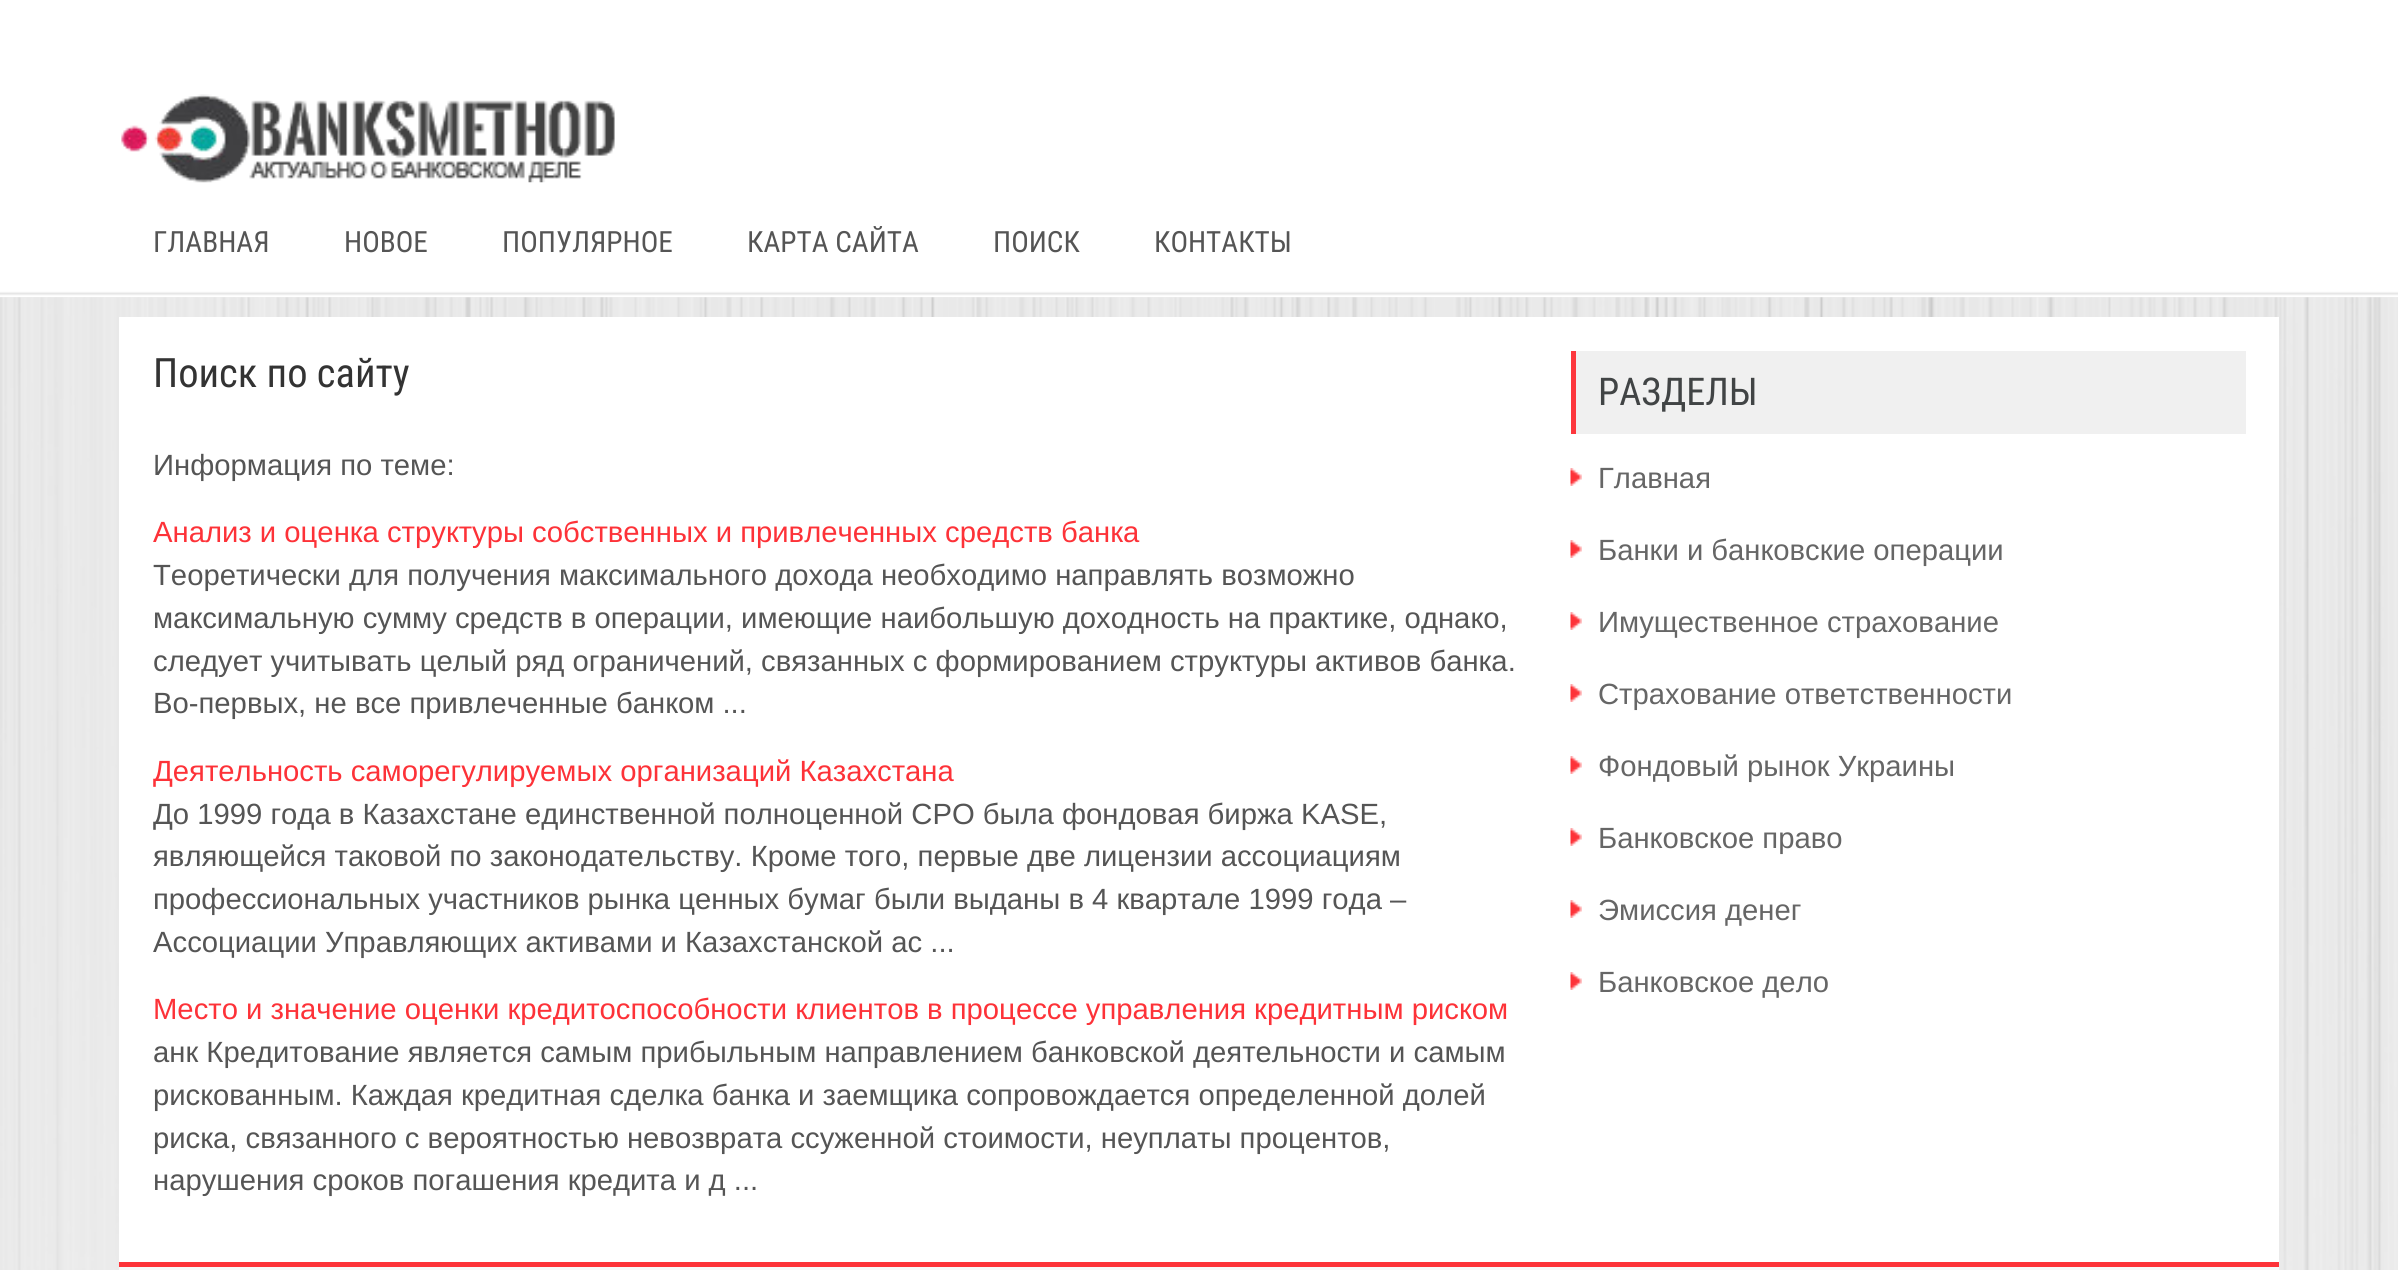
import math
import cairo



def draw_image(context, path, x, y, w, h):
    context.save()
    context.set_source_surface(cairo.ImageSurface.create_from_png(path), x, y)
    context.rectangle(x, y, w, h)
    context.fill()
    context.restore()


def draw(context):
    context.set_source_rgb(1, 1, 1)
    context.paint()
    draw_image(context, "images/1.png", 0, 0, 2398, 1270)
    draw_image(context, "images/2.png", 121, 94, 494, 89)
    context.set_source_rgb(1, 1, 1)
    context.rectangle(119, 317, 2160, 945)
    context.fill()
    context.set_source_rgb(240 / 255, 240 / 255, 240 / 255)
    context.rectangle(1576, 351, 670, 83)
    context.fill()
    context.set_source_rgb(253 / 255, 55 / 255, 61 / 255)
    context.rectangle(1571, 351, 5, 83)
    context.fill()
    draw_image(context, "images/3.png", 1570, 468, 12, 18)
    draw_image(context, "images/3.png", 1570, 540, 12, 18)
    draw_image(context, "images/3.png", 1570, 612, 12, 18)
    draw_image(context, "images/3.png", 1570, 684, 12, 18)
    draw_image(context, "images/3.png", 1570, 756, 12, 18)
    draw_image(context, "images/4.png", 1570, 828, 12, 18)
    draw_image(context, "images/3.png", 1570, 900, 12, 18)
    draw_image(context, "images/3.png", 1570, 972, 12, 18)
    context.set_source_rgb(248 / 255, 248 / 255, 248 / 255)
    context.rectangle(119, 1267, 2160, 3)
    context.fill()
    context.set_source_rgb(253 / 255, 50 / 255, 56 / 255)
    context.rectangle(119, 1262, 2160, 5)
    context.fill()
    context.select_font_face("Roboto Condensed")
    context.set_font_size(29.25)
    context.set_source_rgb(85 / 255, 85 / 255, 85 / 255)
    context.move_to(153, 252)
    context.show_text("ГЛАВНАЯ")
    context.move_to(344, 252)
    context.show_text("НОВОЕ")
    context.move_to(502, 252)
    context.show_text("ПОПУЛЯРНОЕ")
    context.move_to(747, 252)
    context.show_text("КАРТА САЙТА")
    context.move_to(993, 252)
    context.show_text("ПОИСК")
    context.move_to(1154, 252)
    context.show_text("КОНТАКТЫ")
    context.set_font_size(40.5)
    context.set_source_rgb(51 / 255, 51 / 255, 51 / 255)
    context.move_to(153, 387)
    context.show_text("Поиск по сайту")
    context.select_font_face("Liberation Sans")
    context.set_font_size(29.25)
    context.set_source_rgb(85 / 255, 85 / 255, 85 / 255)
    context.move_to(153, 475)
    context.show_text("Информация по теме:")
    context.set_source_rgb(253 / 255, 50 / 255, 56 / 255)
    context.move_to(153, 542)
    context.show_text("Анализ и оценка структуры собственных и привлеченных средств банка")
    context.set_source_rgb(85 / 255, 85 / 255, 85 / 255)
    context.move_to(153, 585)
    context.show_text("Теоретически для получения максимального дохода необходимо направлять возможно")
    context.move_to(153, 628)
    context.show_text("максимальную сумму средств в операции, имеющие наибольшую доходность на практике, однако,")
    context.move_to(153, 671)
    context.show_text("следует учитывать целый ряд ограничений, связанных с формированием структуры активов банка.")
    context.move_to(153, 713)
    context.show_text("Во-первых, не все привлеченные банком ...")
    context.set_source_rgb(253 / 255, 50 / 255, 56 / 255)
    context.move_to(153, 781)
    context.show_text("Деятельность саморегулируемых организаций Казахстана")
    context.set_source_rgb(85 / 255, 85 / 255, 85 / 255)
    context.move_to(153, 824)
    context.show_text("До 1999 года в Казахстане единственной полноценной СРО была фондовая биржа KASE,")
    context.move_to(153, 866)
    context.show_text("являющейся таковой по законодательству. Кроме того, первые две лицензии ассоциациям")
    context.move_to(153, 909)
    context.show_text("профессиональных участников рынка ценных бумаг были выданы в 4 квартале 1999 года –")
    context.move_to(153, 952)
    context.show_text("Ассоциации Управляющих активами и Казахстанской ас ...")
    context.set_source_rgb(253 / 255, 50 / 255, 56 / 255)
    context.move_to(153, 1019)
    context.show_text("Место и значение оценки кредитоспособности клиентов в процессе управления кредитным риском")
    context.set_source_rgb(85 / 255, 85 / 255, 85 / 255)
    context.move_to(153, 1062)
    context.show_text("анк Кредитование является самым прибыльным направлением банковской деятельности и самым")
    context.move_to(153, 1105)
    context.show_text("рискованным. Каждая кредитная сделка банка и заемщика сопровождается определенной долей")
    context.move_to(153, 1148)
    context.show_text("риска, связанного с вероятностью невозврата ссуженной стоимости, неуплаты процентов,")
    context.move_to(153, 1190)
    context.show_text("нарушения сроков погашения кредита и д ...")
    context.select_font_face("Roboto Condensed")
    context.set_font_size(38.25)
    context.set_source_rgb(65 / 255, 68 / 255, 69 / 255)
    context.move_to(1598, 405)
    context.show_text("РАЗДЕЛЫ")
    context.select_font_face("Liberation Sans")
    context.set_font_size(29.25)
    context.set_source_rgb(102 / 255, 102 / 255, 102 / 255)
    context.move_to(1598, 488)
    context.show_text("Главная")
    context.move_to(1598, 560)
    context.show_text("Банки и банковские операции")
    context.move_to(1598, 632)
    context.show_text("Имущественное страхование")
    context.move_to(1598, 704)
    context.show_text("Страхование ответственности")
    context.move_to(1598, 776)
    context.show_text("Фондовый рынок Украины")
    context.move_to(1598, 848)
    context.show_text("Банковское право")
    context.move_to(1598, 920)
    context.show_text("Эмиссия денег")
    context.move_to(1598, 992)
    context.show_text("Банковское дело")


surface = cairo.ImageSurface(cairo.Format.RGB24, 2398, 1270)
context = cairo.Context(surface)
options = cairo.FontOptions()
options.set_hint_metrics(cairo.HintMetrics.OFF)
options.set_hint_style(cairo.HintStyle.NONE)
context.set_font_options(options)
context.set_miter_limit(4)
draw(context)
surface.write_to_png("out.png")
